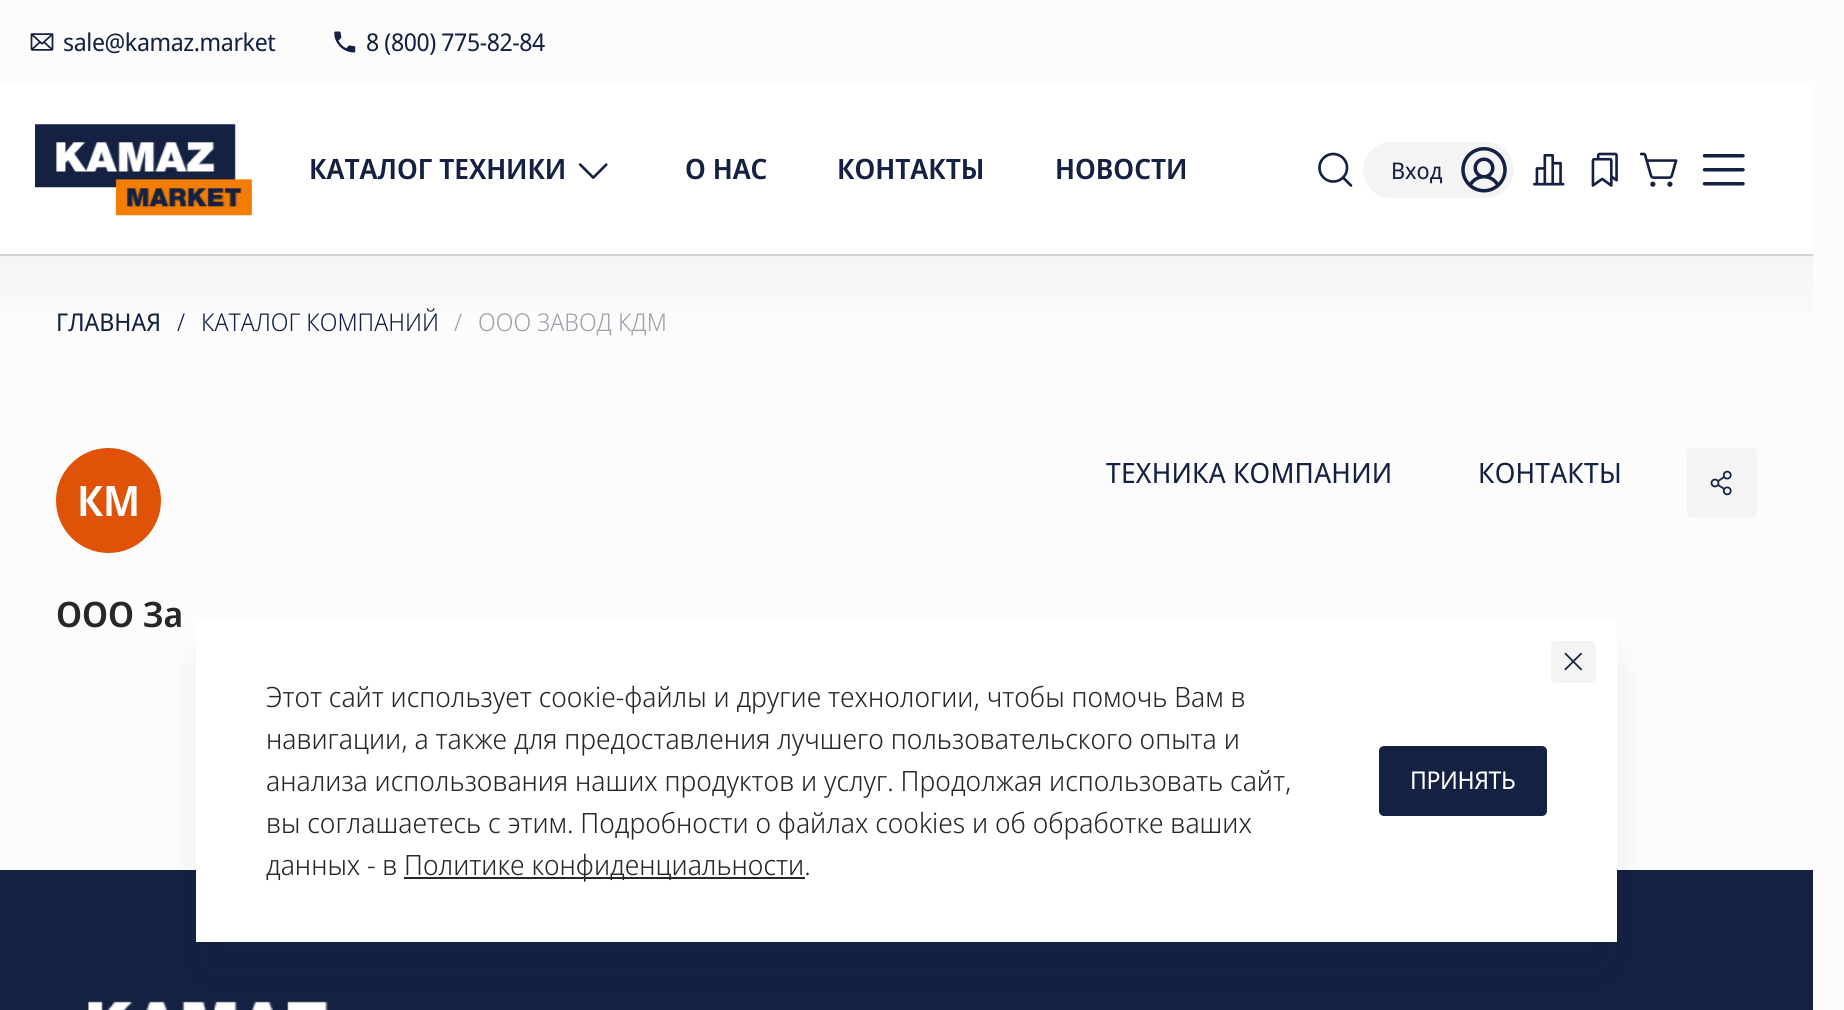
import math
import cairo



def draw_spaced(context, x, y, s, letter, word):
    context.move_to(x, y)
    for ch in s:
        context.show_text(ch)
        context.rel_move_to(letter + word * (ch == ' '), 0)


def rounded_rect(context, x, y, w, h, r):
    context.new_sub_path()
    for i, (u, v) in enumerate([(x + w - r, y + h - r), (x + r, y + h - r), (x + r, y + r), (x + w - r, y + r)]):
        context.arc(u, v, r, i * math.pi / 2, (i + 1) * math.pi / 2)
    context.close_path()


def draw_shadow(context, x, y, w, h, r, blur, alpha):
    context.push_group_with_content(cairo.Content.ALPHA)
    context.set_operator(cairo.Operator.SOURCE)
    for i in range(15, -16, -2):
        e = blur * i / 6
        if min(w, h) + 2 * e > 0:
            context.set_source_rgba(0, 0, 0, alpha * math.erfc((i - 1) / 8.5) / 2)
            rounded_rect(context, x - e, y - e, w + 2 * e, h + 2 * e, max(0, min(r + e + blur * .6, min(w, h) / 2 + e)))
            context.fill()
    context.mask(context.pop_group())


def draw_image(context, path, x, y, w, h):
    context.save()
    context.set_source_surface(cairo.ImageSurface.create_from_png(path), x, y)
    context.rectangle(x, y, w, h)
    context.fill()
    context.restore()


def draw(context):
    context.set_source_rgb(252 / 255, 252 / 255, 252 / 255)
    context.paint()
    draw_image(context, "images/1.png", 30, 33, 24, 18)
    draw_image(context, "images/2.png", 334, 31, 22, 22)
    context.set_source_rgb(1, 1, 1)
    context.rectangle(0, 84, 1813, 170)
    context.fill()
    draw_image(context, "images/3.png", 35, 124, 217, 92)
    draw_image(context, "images/4.png", 578, 163, 30, 16)
    draw_image(context, "images/5.png", 1318, 152, 35, 35)
    context.set_source_rgb(244 / 255, 244 / 255, 245 / 255)
    rounded_rect(context, 1364, 143, 149, 54, 27)
    context.fill_preserve()
    context.stroke()
    draw_image(context, "images/6.png", 1461, 147, 46, 46)
    draw_image(context, "images/7.png", 1533, 154, 32, 32)
    draw_image(context, "images/8.png", 1591, 152, 27, 35)
    draw_image(context, "images/9.png", 1640, 152, 38, 35)
    draw_image(context, "images/10.png", 1702, 154, 43, 32)
    context.set_source_rgb(209 / 255, 209 / 255, 214 / 255)
    context.rectangle(0, 254, 1813, 2)
    context.fill()
    gradient = cairo.LinearGradient(907, 245, 907, 343)
    gradient.add_color_stop_rgba(0, 244 / 255, 244 / 255, 245 / 255, 1)
    gradient.add_color_stop_rgba(1, 252 / 255, 252 / 255, 252 / 255, 1)
    context.set_source(gradient)
    context.rectangle(0, 256, 1813, 56)
    context.fill()
    context.set_source_rgb(244 / 255, 244 / 255, 245 / 255)
    rounded_rect(context, 1687, 448, 70, 70, 5)
    context.fill()
    draw_image(context, "images/11.png", 1710, 470, 22, 26)
    context.set_source_rgb(223 / 255, 82 / 255, 7 / 255)
    context.arc(108.5, 500.5, 52.5, 0, 2 * math.pi)
    context.fill()
    context.set_source_rgb(20 / 255, 33 / 255, 66 / 255)
    context.rectangle(0, 870, 1813, 140)
    context.fill()
    draw_image(context, "images/13.png", 88, 1001, 240, 9)
    context.set_source_rgb(16 / 255, 24 / 255, 40 / 255)
    draw_shadow(context, 203, 662, 1407, 308, 0, 21, 0.08)
    context.set_source_rgb(1, 1, 1)
    context.rectangle(196, 620, 1421, 322)
    context.fill()
    context.set_source_rgb(244 / 255, 244 / 255, 245 / 255)
    rounded_rect(context, 1551, 641, 45, 42, 5)
    context.fill()
    draw_image(context, "images/12.png", 1564, 652, 18, 19)
    context.set_source_rgb(38 / 255, 39 / 255, 43 / 255)
    context.rectangle(404, 877, 401, 2)
    context.fill()
    context.set_source_rgb(20 / 255, 33 / 255, 66 / 255)
    rounded_rect(context, 1379, 746, 168, 70, 5)
    context.fill()
    context.select_font_face("Noto Sans Display")
    context.set_font_size(24.5)
    draw_spaced(context, 63, 51, "sale@kamaz.market", -0.4, 0)
    draw_spaced(context, 366, 51, "8 (800) 775-82-84", -0.4, 0)
    context.select_font_face("Noto Sans Display SemiBold")
    context.set_font_size(28)
    context.move_to(309, 179)
    context.show_text("КАТАЛОГ ТЕХНИКИ")
    context.move_to(685, 179)
    context.show_text("О НАС")
    context.move_to(837, 179)
    context.show_text("КОНТАКТЫ")
    context.move_to(1055, 179)
    context.show_text("НОВОСТИ")
    context.select_font_face("Noto Sans Display")
    context.set_font_size(23)
    context.move_to(1391, 179)
    context.show_text("Вход")
    context.set_font_size(24.5)
    context.move_to(56, 331)
    context.show_text("ГЛАВНАЯ")
    context.select_font_face("Noto Sans Display Light")
    context.move_to(177, 331)
    context.show_text("/")
    context.move_to(201, 331)
    context.show_text("КАТАЛОГ КОМПАНИЙ")
    context.set_source_rgb(160 / 255, 160 / 255, 171 / 255)
    context.move_to(454, 331)
    context.show_text("/")
    context.move_to(478, 331)
    context.show_text("ООО ЗАВОД КДМ")
    context.select_font_face("Noto Sans Display")
    context.set_font_size(28)
    context.set_source_rgb(20 / 255, 33 / 255, 66 / 255)
    draw_spaced(context, 1106, 483, "ТЕХНИКА КОМПАНИИ", 0.25, 0)
    draw_spaced(context, 1478, 483, "КОНТАКТЫ", 0.25, 0)
    context.select_font_face("Noto Sans Display SemiBold")
    context.set_font_size(42)
    context.set_source_rgb(1, 1, 1)
    context.move_to(77, 516)
    context.show_text("КМ")
    context.set_font_size(35)
    context.set_source_rgb(38 / 255, 39 / 255, 43 / 255)
    context.move_to(56, 627)
    context.show_text("ООО За")
    context.select_font_face("Noto Sans Display Light")
    context.set_font_size(28)
    context.move_to(266, 707)
    context.show_text("Этот сайт использует соокіe-файлы и другие технологии, чтобы помочь Вам в")
    context.move_to(266, 749)
    context.show_text("навигации, а также для предоставления лучшего пользовательского опыта и")
    context.move_to(266, 791)
    context.show_text("анализа использования наших продуктов и услуг. Продолжая использовать сайт,")
    context.move_to(266, 833)
    context.show_text("вы соглашаетесь с этим. Подробности о файлах cookies и об обработке ваших")
    context.move_to(266, 875)
    context.show_text("данных - в")
    context.move_to(404, 875)
    context.show_text("Политике конфиденциальности.")
    context.select_font_face("Noto Sans Display")
    context.set_font_size(24.5)
    context.set_source_rgb(1, 1, 1)
    draw_spaced(context, 1410, 789, "ПРИНЯТЬ", -0.4, 0)


surface = cairo.ImageSurface(cairo.Format.RGB24, 1844, 1010)
context = cairo.Context(surface)
options = cairo.FontOptions()
options.set_hint_metrics(cairo.HintMetrics.OFF)
options.set_hint_style(cairo.HintStyle.NONE)
context.set_font_options(options)
context.set_miter_limit(4)
draw(context)
surface.write_to_png("out.png")
